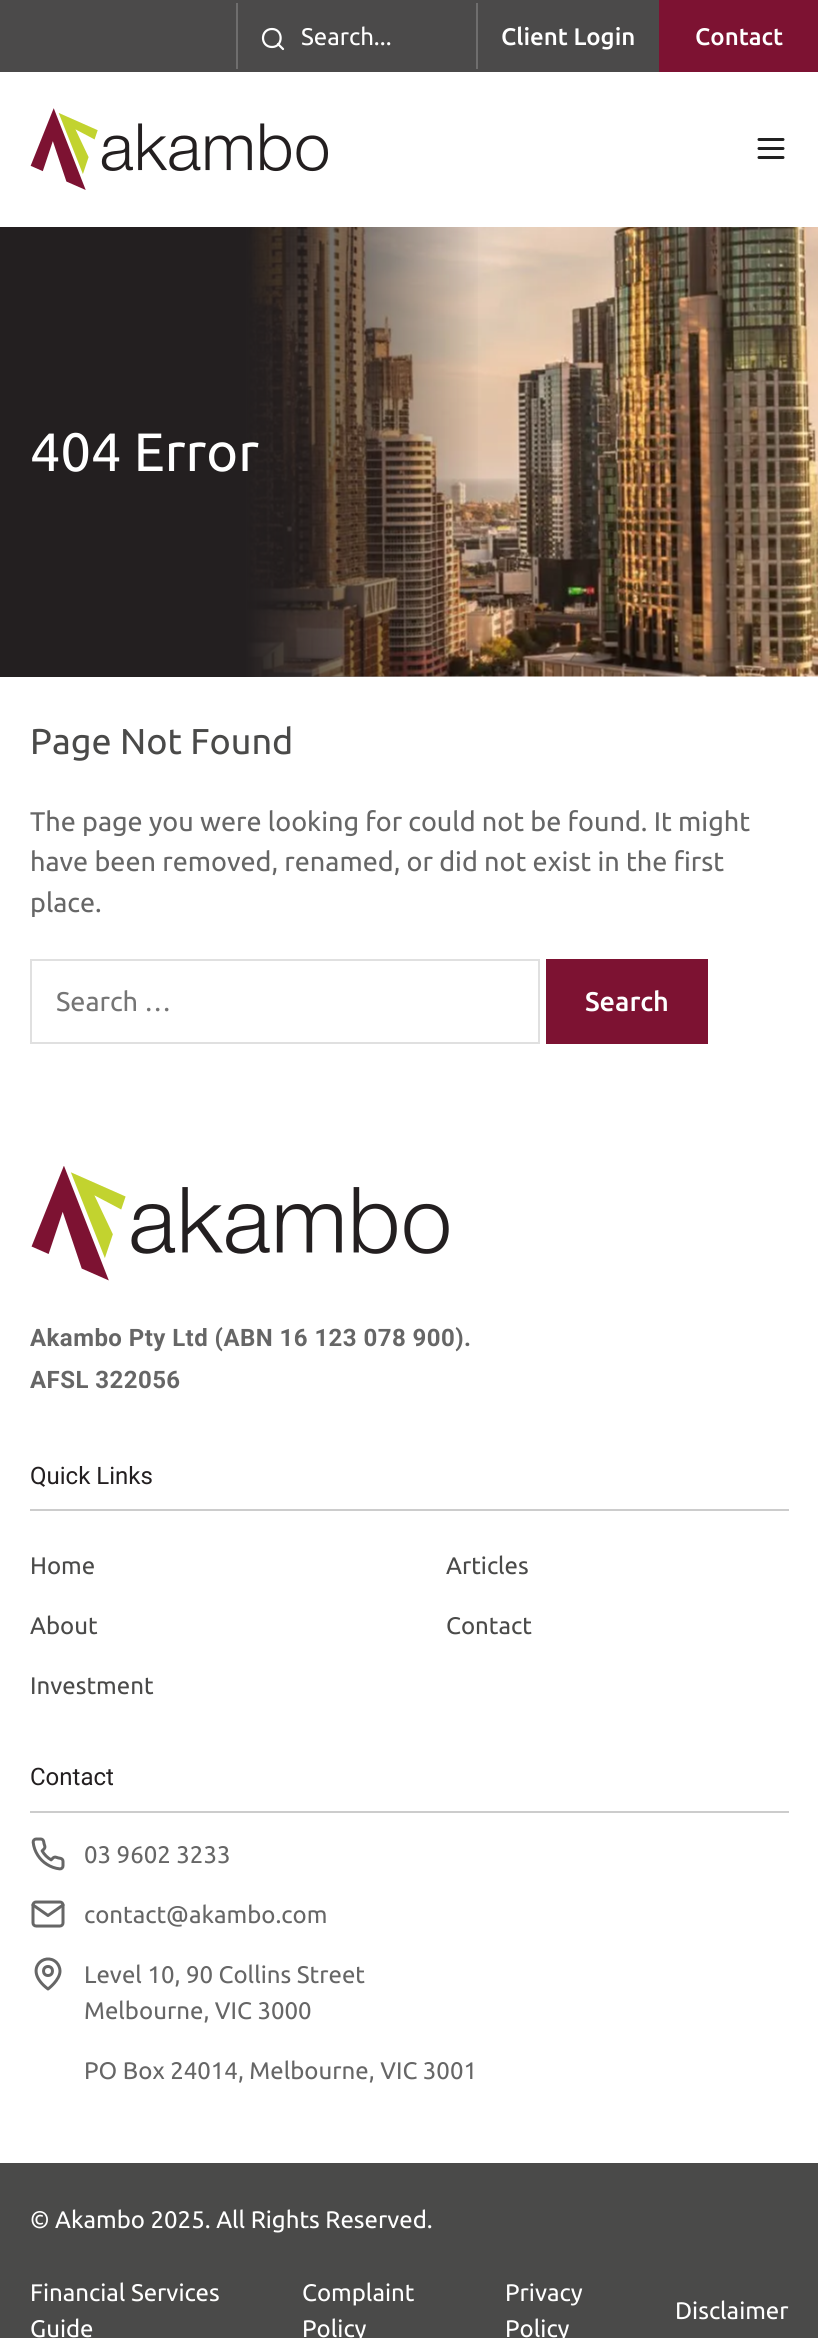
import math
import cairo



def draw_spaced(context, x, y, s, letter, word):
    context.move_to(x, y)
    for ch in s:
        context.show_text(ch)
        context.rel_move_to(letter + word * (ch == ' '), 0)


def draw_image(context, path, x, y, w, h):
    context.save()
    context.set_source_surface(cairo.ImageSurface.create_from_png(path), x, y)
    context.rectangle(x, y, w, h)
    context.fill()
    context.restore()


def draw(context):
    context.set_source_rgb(1, 1, 1)
    context.paint()
    context.set_source_rgb(75 / 255, 74 / 255, 74 / 255)
    context.rectangle(0, 0, 659, 72)
    context.fill()
    context.set_source_rgb(111 / 255, 110 / 255, 110 / 255)
    context.rectangle(476, 3, 2, 66)
    context.fill()
    context.rectangle(236, 3, 2, 66)
    context.fill()
    context.new_path()
    context.move_to(272, 47)
    context.curve_to(283.5, 47, 283.5, 29, 272, 29)
    context.curve_to(260, 29, 260, 47, 272, 47)
    context.close_path()
    context.move_to(283, 49)
    context.line_to(278, 44)
    context.set_source_rgb(1, 1, 1)
    context.set_line_width(2.2)
    context.set_line_cap(cairo.LineCap.ROUND)
    context.set_line_join(cairo.LineJoin.ROUND)
    context.stroke()
    context.set_source_rgb(125 / 255, 18 / 255, 50 / 255)
    context.rectangle(659, 0, 159, 72)
    context.fill()
    draw_image(context, "images/1.png", 30, 108, 298, 82)
    context.new_path()
    context.move_to(759, 148.5)
    context.line_to(783, 148.5)
    context.move_to(759, 139.5)
    context.line_to(783, 139.5)
    context.move_to(759, 157.5)
    context.line_to(783, 157.5)
    context.set_source_rgb(33 / 255, 33 / 255, 33 / 255)
    context.set_line_width(3)
    context.stroke()
    draw_image(context, "images/2.png", 247, 227, 571, 450)
    gradient = cairo.LinearGradient(0, 452, 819, 452)
    gradient.add_color_stop_rgba(0.3, 35 / 255, 31 / 255, 32 / 255, 1)
    gradient.add_color_stop_rgba(0.59, 35 / 255, 31 / 255, 32 / 255, 0)
    context.set_source(gradient)
    context.rectangle(0, 227, 478, 450)
    context.fill()
    context.rectangle(31, 960, 508, 83)
    context.set_source_rgb(224 / 255, 224 / 255, 224 / 255)
    context.set_line_width(2)
    context.set_line_cap(cairo.LineCap.BUTT)
    context.set_line_join(cairo.LineJoin.MITER)
    context.stroke()
    context.set_source_rgb(125 / 255, 18 / 255, 50 / 255)
    context.rectangle(546, 959, 162, 85)
    context.fill()
    draw_image(context, "images/3.png", 31, 1166, 418, 115)
    context.set_source_rgb(204 / 255, 204 / 255, 204 / 255)
    context.rectangle(30, 1509, 759, 2)
    context.fill()
    context.rectangle(30, 1811, 759, 2)
    context.fill()
    draw_image(context, "images/4.png", 31, 1837, 34, 34)
    draw_image(context, "images/5.png", 31, 1900, 34, 28)
    context.new_path()
    context.move_to(60, 1971)
    context.curve_to(60, 1980, 48, 1989, 48, 1989)
    context.curve_to(22, 1969.5, 45, 1951, 56.5, 1962.5)
    context.curve_to(58.5, 1964.5, 60, 1968, 60, 1971)
    context.close_path()
    context.move_to(48, 1975.5)
    context.curve_to(54, 1975.5, 54, 1966.5, 48, 1966.5)
    context.curve_to(42, 1966.5, 42, 1975.5, 48, 1975.5)
    context.close_path()
    context.set_source_rgb(102 / 255, 102 / 255, 102 / 255)
    context.set_line_width(3)
    context.set_line_cap(cairo.LineCap.ROUND)
    context.set_line_join(cairo.LineJoin.ROUND)
    context.stroke()
    context.set_source_rgb(74 / 255, 74 / 255, 73 / 255)
    context.rectangle(0, 2163, 818, 175)
    context.fill()
    context.select_font_face("Ubuntu")
    context.set_font_size(24)
    context.set_source_rgb(1, 1, 1)
    context.move_to(301, 45)
    context.show_text("Search...")
    context.select_font_face("Ubuntu Medium")
    context.move_to(501, 45)
    context.show_text("Client Login")
    context.move_to(695, 45)
    context.show_text("Contact")
    context.select_font_face("Ubuntu")
    context.set_font_size(54)
    context.move_to(30, 471)
    context.show_text("404 Error")
    context.set_font_size(36)
    context.set_source_rgb(74 / 255, 74 / 255, 73 / 255)
    context.move_to(30, 754)
    context.show_text("Page Not Found")
    context.set_font_size(27)
    context.set_source_rgb(102 / 255, 102 / 255, 102 / 255)
    context.move_to(30, 831)
    context.show_text("The page you were looking for could not be found. It might")
    context.move_to(30, 871)
    context.show_text("have been removed, renamed, or did not exist in the first")
    context.move_to(30, 912)
    context.show_text("place.")
    context.set_source_rgb(117 / 255, 117 / 255, 117 / 255)
    context.move_to(56, 1011)
    context.show_text("Search …")
    context.select_font_face("Ubuntu Medium")
    context.set_source_rgb(1, 1, 1)
    context.move_to(585, 1011)
    context.show_text("Search")
    context.select_font_face("Roboto", cairo.FontSlant.NORMAL, cairo.FontWeight.BOLD)
    context.set_font_size(24)
    context.set_source_rgb(102 / 255, 102 / 255, 102 / 255)
    draw_spaced(context, 30, 1346, "Akambo Pty Ltd (ABN 16 123 078 900).", 0.45, 0)
    draw_spaced(context, 30, 1388, "AFSL 322056", 0.45, 0)
    context.select_font_face("Roboto")
    context.set_source_rgb(35 / 255, 31 / 255, 32 / 255)
    context.move_to(30, 1484)
    context.show_text("Quick Links")
    context.select_font_face("Ubuntu")
    context.set_source_rgb(74 / 255, 74 / 255, 73 / 255)
    context.move_to(30, 1574)
    context.show_text("Home")
    context.move_to(30, 1634)
    context.show_text("About")
    context.move_to(30, 1694)
    context.show_text("Investment")
    context.move_to(446, 1574)
    context.show_text("Articles")
    context.move_to(446, 1634)
    context.show_text("Contact")
    context.select_font_face("Roboto")
    context.set_source_rgb(35 / 255, 31 / 255, 32 / 255)
    context.move_to(30, 1785)
    context.show_text("Contact")
    context.select_font_face("Ubuntu")
    context.set_source_rgb(102 / 255, 102 / 255, 102 / 255)
    context.move_to(84, 1863)
    context.show_text("03 9602 3233")
    context.move_to(84, 1923)
    context.show_text("contact@akambo.com")
    context.move_to(84, 1983)
    context.show_text("Level 10, 90 Collins Street")
    context.move_to(84, 2019)
    context.show_text("Melbourne, VIC 3000")
    context.move_to(84, 2079)
    context.show_text("PO Box 24014, Melbourne, VIC 3001")
    context.set_source_rgb(1, 1, 1)
    context.move_to(30, 2228)
    context.show_text("© Akambo 2025. All Rights Reserved.")
    context.move_to(30, 2301)
    context.show_text("Financial Services")
    context.move_to(30, 2337)
    context.show_text("Guide")
    context.move_to(302, 2301)
    context.show_text("Complaint")
    context.move_to(302, 2337)
    context.show_text("Policy")
    context.move_to(505, 2301)
    context.show_text("Privacy")
    context.move_to(505, 2337)
    context.show_text("Policy")
    context.move_to(675, 2319)
    context.show_text("Disclaimer")


surface = cairo.ImageSurface(cairo.Format.RGB24, 818, 2338)
context = cairo.Context(surface)
options = cairo.FontOptions()
options.set_hint_metrics(cairo.HintMetrics.OFF)
options.set_hint_style(cairo.HintStyle.NONE)
context.set_font_options(options)
context.set_miter_limit(4)
draw(context)
surface.write_to_png("out.png")
